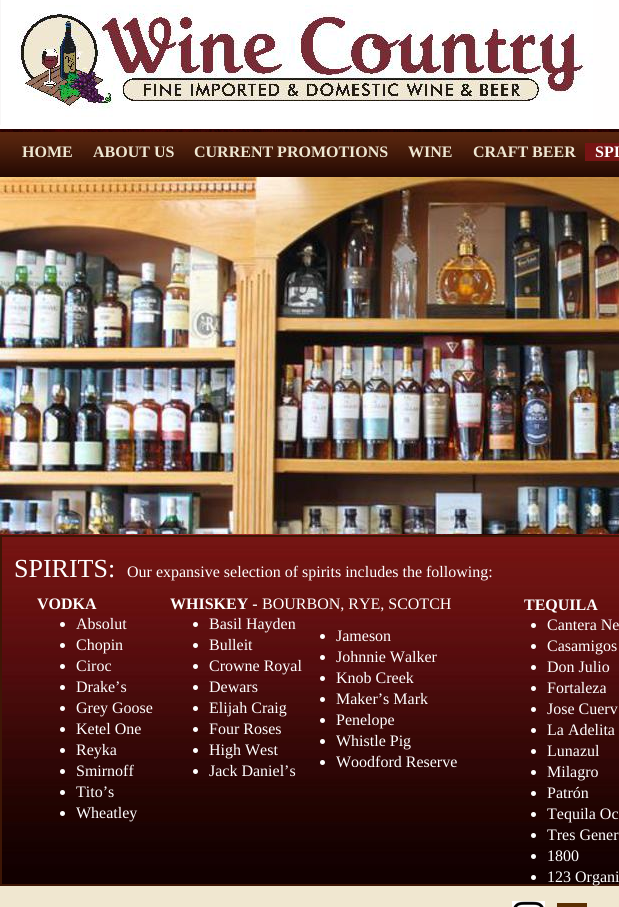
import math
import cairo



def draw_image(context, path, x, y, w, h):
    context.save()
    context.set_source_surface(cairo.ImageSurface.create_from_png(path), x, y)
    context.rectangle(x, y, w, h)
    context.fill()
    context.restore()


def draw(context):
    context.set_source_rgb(240 / 255, 231 / 255, 208 / 255)
    context.paint()
    draw_image(context, "images/1.png", 0, 0, 619, 535)
    draw_image(context, "images/2.png", 0, 0, 593, 125)
    draw_image(context, "images/3.png", 0, 132, 619, 45)
    context.set_source_rgb(120 / 255, 20 / 255, 20 / 255)
    context.rectangle(585, 143, 34, 18)
    context.fill()
    draw_image(context, "images/4.png", 0, 177, 619, 357)
    context.rectangle(1, 536, 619, 349)
    context.set_source_rgb(61 / 255, 22 / 255, 5 / 255)
    context.stroke()
    draw_image(context, "images/5.png", 2, 537, 617, 347)
    context.set_source_rgb(1, 1, 1)
    context.arc(62.5, 624.5, 2.5, 0, 2 * math.pi)
    context.fill()
    context.arc(62.5, 645.5, 2.5, 0, 2 * math.pi)
    context.fill()
    context.arc(62.5, 666.5, 2.5, 0, 2 * math.pi)
    context.fill()
    context.arc(62.5, 687.5, 2.5, 0, 2 * math.pi)
    context.fill()
    context.arc(62.5, 708.5, 2.5, 0, 2 * math.pi)
    context.fill()
    context.arc(62.5, 729.5, 2.5, 0, 2 * math.pi)
    context.fill()
    context.arc(62.5, 750.5, 2.5, 0, 2 * math.pi)
    context.fill()
    context.arc(62.5, 771.5, 2.5, 0, 2 * math.pi)
    context.fill()
    context.arc(62.5, 792.5, 2.5, 0, 2 * math.pi)
    context.fill()
    context.arc(62.5, 813.5, 2.5, 0, 2 * math.pi)
    context.fill()
    context.arc(195.5, 624.5, 2.5, 0, 2 * math.pi)
    context.fill()
    context.arc(195.5, 645.5, 2.5, 0, 2 * math.pi)
    context.fill()
    context.arc(195.5, 666.5, 2.5, 0, 2 * math.pi)
    context.fill()
    context.arc(195.5, 687.5, 2.5, 0, 2 * math.pi)
    context.fill()
    context.arc(195.5, 708.5, 2.5, 0, 2 * math.pi)
    context.fill()
    context.arc(195.5, 729.5, 2.5, 0, 2 * math.pi)
    context.fill()
    context.arc(195.5, 750.5, 2.5, 0, 2 * math.pi)
    context.fill()
    context.arc(195.5, 771.5, 2.5, 0, 2 * math.pi)
    context.fill()
    context.arc(533.5, 625.5, 2.5, 0, 2 * math.pi)
    context.fill()
    context.arc(533.5, 646.5, 2.5, 0, 2 * math.pi)
    context.fill()
    context.arc(533.5, 667.5, 2.5, 0, 2 * math.pi)
    context.fill()
    context.arc(533.5, 688.5, 2.5, 0, 2 * math.pi)
    context.fill()
    context.arc(533.5, 709.5, 2.5, 0, 2 * math.pi)
    context.fill()
    context.arc(533.5, 730.5, 2.5, 0, 2 * math.pi)
    context.fill()
    context.arc(533.5, 751.5, 2.5, 0, 2 * math.pi)
    context.fill()
    context.arc(533.5, 772.5, 2.5, 0, 2 * math.pi)
    context.fill()
    context.arc(533.5, 793.5, 2.5, 0, 2 * math.pi)
    context.fill()
    context.arc(533.5, 814.5, 2.5, 0, 2 * math.pi)
    context.fill()
    context.arc(533.5, 835.5, 2.5, 0, 2 * math.pi)
    context.fill()
    context.arc(533.5, 856.5, 2.5, 0, 2 * math.pi)
    context.fill()
    context.arc(533.5, 877.5, 2.5, 0, 2 * math.pi)
    context.fill()
    context.arc(322.5, 636.5, 2.5, 0, 2 * math.pi)
    context.fill()
    context.arc(322.5, 657.5, 2.5, 0, 2 * math.pi)
    context.fill()
    context.arc(322.5, 678.5, 2.5, 0, 2 * math.pi)
    context.fill()
    context.arc(322.5, 699.5, 2.5, 0, 2 * math.pi)
    context.fill()
    context.arc(322.5, 720.5, 2.5, 0, 2 * math.pi)
    context.fill()
    context.arc(322.5, 741.5, 2.5, 0, 2 * math.pi)
    context.fill()
    context.arc(322.5, 762.5, 2.5, 0, 2 * math.pi)
    context.fill()
    draw_image(context, "images/6.png", 512, 901, 33, 6)
    context.set_source_rgb(91 / 255, 47 / 255, 1 / 255)
    context.rectangle(557, 903, 30, 4)
    context.fill()
    context.select_font_face("Liberation Serif", cairo.FontSlant.NORMAL, cairo.FontWeight.BOLD)
    context.set_font_size(16)
    context.set_source_rgb(239 / 255, 231 / 255, 210 / 255)
    context.move_to(22, 157)
    context.show_text("HOME")
    context.move_to(93, 157)
    context.show_text("ABOUT US")
    context.move_to(194, 157)
    context.show_text("CURRENT PROMOTIONS")
    context.move_to(408, 157)
    context.show_text("WINE")
    context.move_to(473, 157)
    context.show_text("CRAFT BEER")
    context.set_source_rgb(1, 1, 1)
    context.move_to(595, 157)
    context.show_text("SPI")
    context.select_font_face("Liberation Serif")
    context.set_font_size(26)
    context.move_to(14, 577)
    context.show_text("SPIRITS:")
    context.set_font_size(16)
    context.move_to(127, 577)
    context.show_text("Our expansive selection of spirits includes the following:")
    context.select_font_face("Liberation Serif", cairo.FontSlant.NORMAL, cairo.FontWeight.BOLD)
    context.move_to(37, 609)
    context.show_text("VODKA")
    context.select_font_face("Liberation Serif")
    context.move_to(76, 629)
    context.show_text("Absolut")
    context.move_to(76, 650)
    context.show_text("Chopin")
    context.move_to(76, 671)
    context.show_text("Ciroc")
    context.move_to(76, 692)
    context.show_text("Drake’s")
    context.move_to(76, 713)
    context.show_text("Grey Goose")
    context.move_to(76, 734)
    context.show_text("Ketel One")
    context.move_to(76, 755)
    context.show_text("Reyka")
    context.move_to(76, 776)
    context.show_text("Smirnoff")
    context.move_to(76, 797)
    context.show_text("Tito’s")
    context.move_to(76, 818)
    context.show_text("Wheatley")
    context.select_font_face("Liberation Serif", cairo.FontSlant.NORMAL, cairo.FontWeight.BOLD)
    context.move_to(170, 609)
    context.show_text("WHISKEY -")
    context.select_font_face("Liberation Serif")
    context.move_to(262, 609)
    context.show_text("BOURBON, RYE, SCOTCH")
    context.move_to(209, 629)
    context.show_text("Basil Hayden")
    context.move_to(209, 650)
    context.show_text("Bulleit")
    context.move_to(209, 671)
    context.show_text("Crowne Royal")
    context.move_to(209, 692)
    context.show_text("Dewars")
    context.move_to(209, 713)
    context.show_text("Elijah Craig")
    context.move_to(209, 734)
    context.show_text("Four Roses")
    context.move_to(209, 755)
    context.show_text("High West")
    context.move_to(209, 776)
    context.show_text("Jack Daniel’s")
    context.select_font_face("Liberation Serif", cairo.FontSlant.NORMAL, cairo.FontWeight.BOLD)
    context.move_to(524, 610)
    context.show_text("TEQUILA")
    context.select_font_face("Liberation Serif")
    context.move_to(547, 630)
    context.show_text("Cantera Ne")
    context.move_to(547, 651)
    context.show_text("Casamigos")
    context.move_to(547, 672)
    context.show_text("Don Julio")
    context.move_to(547, 693)
    context.show_text("Fortaleza")
    context.move_to(547, 714)
    context.show_text("Jose Cuerv")
    context.move_to(547, 735)
    context.show_text("La Adelita")
    context.move_to(547, 756)
    context.show_text("Lunazul")
    context.move_to(547, 777)
    context.show_text("Milagro")
    context.move_to(547, 798)
    context.show_text("Patrón")
    context.move_to(547, 819)
    context.show_text("Tequila Oc")
    context.move_to(547, 840)
    context.show_text("Tres Gener")
    context.move_to(547, 861)
    context.show_text("1800")
    context.move_to(547, 882)
    context.show_text("123 Organi")
    context.move_to(336, 641)
    context.show_text("Jameson")
    context.move_to(336, 662)
    context.show_text("Johnnie Walker")
    context.move_to(336, 683)
    context.show_text("Knob Creek")
    context.move_to(336, 704)
    context.show_text("Maker’s Mark")
    context.move_to(336, 725)
    context.show_text("Penelope")
    context.move_to(336, 746)
    context.show_text("Whistle Pig")
    context.move_to(336, 767)
    context.show_text("Woodford Reserve")


surface = cairo.ImageSurface(cairo.Format.RGB24, 619, 907)
context = cairo.Context(surface)
options = cairo.FontOptions()
options.set_hint_metrics(cairo.HintMetrics.OFF)
options.set_hint_style(cairo.HintStyle.NONE)
context.set_font_options(options)
context.set_miter_limit(4)
draw(context)
surface.write_to_png("out.png")
